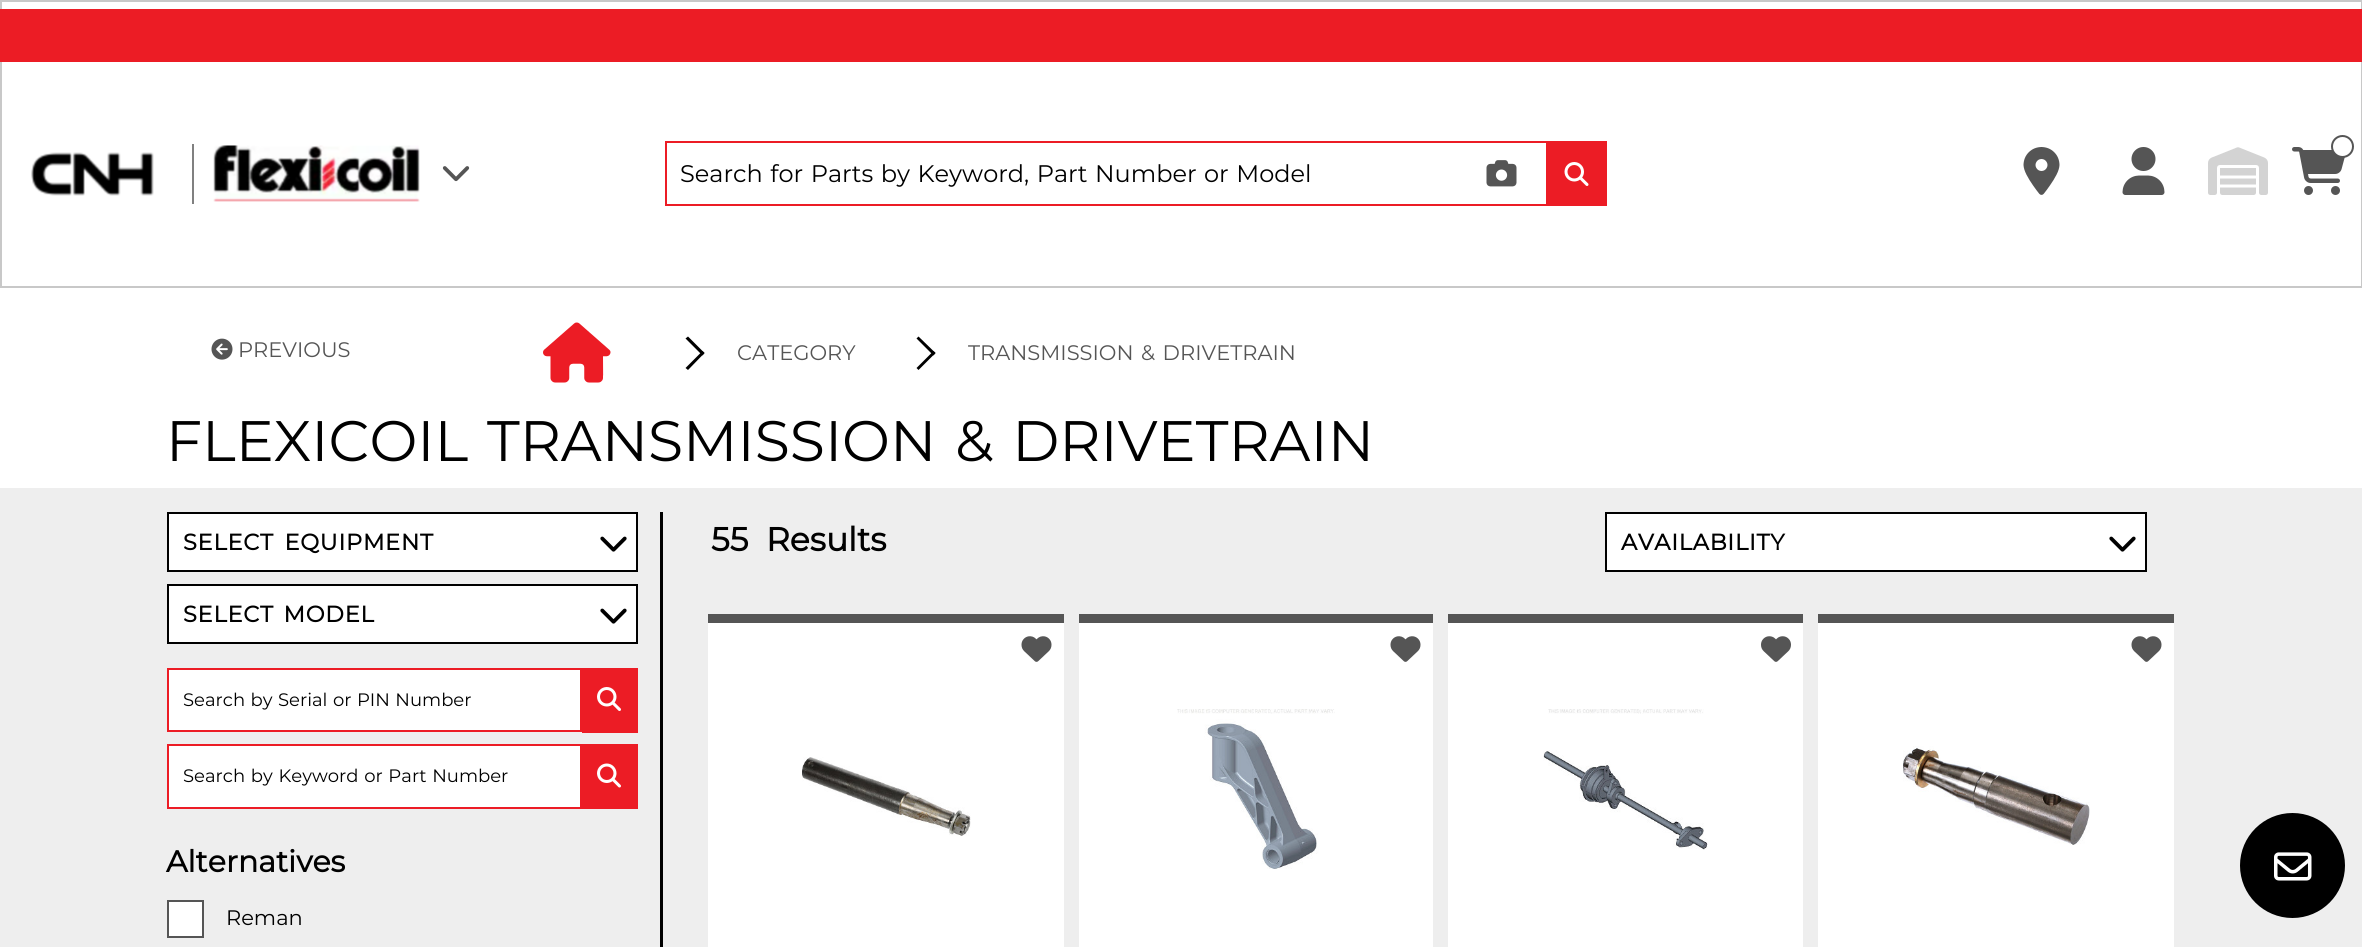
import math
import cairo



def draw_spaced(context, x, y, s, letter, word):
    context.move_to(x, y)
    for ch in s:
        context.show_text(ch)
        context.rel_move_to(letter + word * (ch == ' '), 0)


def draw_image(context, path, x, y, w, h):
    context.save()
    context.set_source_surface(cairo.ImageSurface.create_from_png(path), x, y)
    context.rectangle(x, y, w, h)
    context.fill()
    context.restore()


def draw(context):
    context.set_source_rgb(1, 1, 1)
    context.paint()
    context.rectangle(1, 1, 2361, 286)
    context.set_source_rgb(200 / 255, 200 / 255, 200 / 255)
    context.stroke()
    context.set_source_rgb(236 / 255, 28 / 255, 37 / 255)
    context.rectangle(0, 9, 2362, 53)
    context.fill()
    draw_image(context, "images/1.png", 31, 152, 123, 44)
    context.set_source_rgb(128 / 255, 128 / 255, 128 / 255)
    context.rectangle(192, 144, 2, 60)
    context.fill()
    draw_image(context, "images/2.png", 213, 145, 207, 57)
    draw_image(context, "images/3.png", 442, 166, 28, 16)
    context.rectangle(666, 142, 881, 63)
    context.set_source_rgb(236 / 255, 28 / 255, 37 / 255)
    context.stroke()
    draw_image(context, "images/4.png", 1486, 160, 31, 27)
    context.rectangle(1548, 141, 59, 65)
    context.fill()
    draw_image(context, "images/5.png", 1564, 162, 25, 24)
    draw_image(context, "images/6.png", 2023, 147, 37, 48)
    draw_image(context, "images/7.png", 2122, 147, 43, 48)
    draw_image(context, "images/8.png", 2208, 147, 60, 48)
    draw_image(context, "images/9.png", 2292, 147, 53, 48)
    context.set_source_rgb(1, 1, 1)
    context.arc(2342.5, 146.5, 10.5, 0, 2 * math.pi)
    context.fill_preserve()
    context.set_source_rgb(85 / 255, 85 / 255, 85 / 255)
    context.stroke()
    draw_image(context, "images/10.png", 211, 338, 22, 22)
    draw_image(context, "images/11.png", 543, 322, 68, 61)
    context.set_source_rgb(0, 0, 0)
    context.new_path()
    context.move_to(685.5, 338.5)
    context.line_to(688, 336.5)
    context.line_to(704.5, 353)
    context.line_to(702.5, 355.5)
    context.close_path()
    context.fill()
    context.new_path()
    context.move_to(685.5, 368)
    context.line_to(702.5, 351)
    context.line_to(704.5, 353)
    context.line_to(688, 370)
    context.close_path()
    context.fill()
    context.new_path()
    context.move_to(916.5, 338.5)
    context.line_to(918.5, 336.5)
    context.line_to(935.5, 353)
    context.line_to(933.5, 355.5)
    context.close_path()
    context.fill()
    context.new_path()
    context.move_to(916.5, 368)
    context.line_to(933.5, 351)
    context.line_to(935.5, 353)
    context.line_to(918.5, 370)
    context.close_path()
    context.fill()
    context.set_source_rgb(238 / 255, 238 / 255, 238 / 255)
    context.rectangle(0, 488, 2362, 459)
    context.fill()
    context.set_source_rgb(0, 0, 0)
    context.rectangle(660, 512, 3, 435)
    context.fill()
    context.set_source_rgb(1, 1, 1)
    context.rectangle(168, 513, 469, 58)
    context.fill_preserve()
    context.set_source_rgb(0, 0, 0)
    context.stroke()
    draw_image(context, "images/12.png", 600, 536, 27, 16)
    context.set_source_rgb(1, 1, 1)
    context.rectangle(168, 585, 469, 58)
    context.fill_preserve()
    context.set_source_rgb(0, 0, 0)
    context.stroke()
    draw_image(context, "images/12.png", 600, 608, 27, 16)
    context.set_source_rgb(1, 1, 1)
    context.rectangle(168, 669, 413, 62)
    context.fill_preserve()
    context.set_source_rgb(236 / 255, 28 / 255, 37 / 255)
    context.stroke()
    context.rectangle(582, 668, 56, 65)
    context.fill()
    draw_image(context, "images/13.png", 597, 687, 24, 24)
    context.set_source_rgb(1, 1, 1)
    context.rectangle(168, 745, 413, 63)
    context.fill_preserve()
    context.set_source_rgb(236 / 255, 28 / 255, 37 / 255)
    context.stroke()
    context.rectangle(582, 744, 56, 65)
    context.fill()
    draw_image(context, "images/14.png", 597, 763, 24, 25)
    context.set_source_rgb(1, 1, 1)
    context.rectangle(168, 901, 35, 36)
    context.fill_preserve()
    context.set_source_rgb(85 / 255, 85 / 255, 85 / 255)
    context.stroke()
    context.set_source_rgb(1, 1, 1)
    context.rectangle(1606, 513, 540, 58)
    context.fill_preserve()
    context.set_source_rgb(0, 0, 0)
    context.stroke()
    draw_image(context, "images/12.png", 2109, 536, 27, 16)
    context.set_source_rgb(1, 1, 1)
    context.rectangle(708, 623, 356, 324)
    context.fill()
    context.set_source_rgb(85 / 255, 85 / 255, 85 / 255)
    context.rectangle(708, 614, 356, 9)
    context.fill()
    draw_image(context, "images/15.png", 1021, 636, 31, 26)
    draw_image(context, "images/16.png", 802, 757, 169, 79)
    context.set_source_rgb(1, 1, 1)
    context.rectangle(1079, 623, 354, 324)
    context.fill()
    context.set_source_rgb(85 / 255, 85 / 255, 85 / 255)
    context.rectangle(1079, 614, 354, 9)
    context.fill()
    draw_image(context, "images/15.png", 1390, 636, 31, 26)
    draw_image(context, "images/17.png", 1177, 709, 158, 160)
    context.set_source_rgb(1, 1, 1)
    context.rectangle(1448, 623, 355, 324)
    context.fill()
    context.set_source_rgb(85 / 255, 85 / 255, 85 / 255)
    context.rectangle(1448, 614, 355, 9)
    context.fill()
    draw_image(context, "images/18.png", 1761, 636, 30, 26)
    draw_image(context, "images/19.png", 1543, 709, 165, 141)
    context.set_source_rgb(1, 1, 1)
    context.rectangle(1818, 623, 356, 324)
    context.fill()
    context.set_source_rgb(85 / 255, 85 / 255, 85 / 255)
    context.rectangle(1818, 614, 356, 9)
    context.fill()
    draw_image(context, "images/15.png", 2131, 636, 31, 26)
    draw_image(context, "images/20.png", 1903, 746, 187, 99)
    context.set_source_rgb(0, 0, 0)
    context.arc(2292.5, 865.5, 51, 0, 2 * math.pi)
    context.fill_preserve()
    context.set_line_width(3)
    context.stroke()
    draw_image(context, "images/21.png", 2274, 852, 38, 29)
    context.select_font_face("Montserrat")
    context.set_font_size(24)
    draw_spaced(context, 680, 182, "Search for Parts by Keyword, Part Number or Model", 0, 1.25)
    context.set_font_size(21)
    context.set_source_rgb(85 / 255, 85 / 255, 85 / 255)
    context.move_to(238, 357)
    context.show_text("PREVIOUS")
    context.move_to(737, 360)
    context.show_text("CATEGORY")
    draw_spaced(context, 968, 360, "TRANSMISSION & DRIVETRAIN", 0, 2)
    context.set_font_size(57)
    context.set_source_rgb(0, 0, 0)
    draw_spaced(context, 166, 461, "FLEXICOIL TRANSMISSION & DRIVETRAIN", 0, 4)
    context.select_font_face("Montserrat", cairo.FontSlant.NORMAL, cairo.FontWeight.BOLD)
    context.set_font_size(22.5)
    draw_spaced(context, 183, 550, "SELECT EQUIPMENT", 0.75, 4)
    draw_spaced(context, 183, 622, "SELECT MODEL", 0.75, 3)
    context.select_font_face("Montserrat")
    context.set_font_size(18)
    draw_spaced(context, 183, 706, "Search by Serial or PIN Number", 0, 0.75)
    draw_spaced(context, 183, 782, "Search by Keyword or Part Number", 0, 1)
    context.select_font_face("Montserrat", cairo.FontSlant.NORMAL, cairo.FontWeight.BOLD)
    context.set_font_size(30)
    context.move_to(166, 872)
    context.show_text("Alternatives")
    context.select_font_face("Montserrat")
    context.set_font_size(21)
    context.move_to(226, 925)
    context.show_text("Reman")
    context.select_font_face("Montserrat", cairo.FontSlant.NORMAL, cairo.FontWeight.BOLD)
    context.set_font_size(33)
    draw_spaced(context, 711, 551, "55 Results", 0, 9)
    context.set_font_size(22.5)
    draw_spaced(context, 1621, 550, "AVAILABILITY", 0.75, 0)


surface = cairo.ImageSurface(cairo.Format.RGB24, 2362, 947)
context = cairo.Context(surface)
options = cairo.FontOptions()
options.set_hint_metrics(cairo.HintMetrics.OFF)
options.set_hint_style(cairo.HintStyle.NONE)
context.set_font_options(options)
context.set_miter_limit(4)
draw(context)
surface.write_to_png("out.png")
